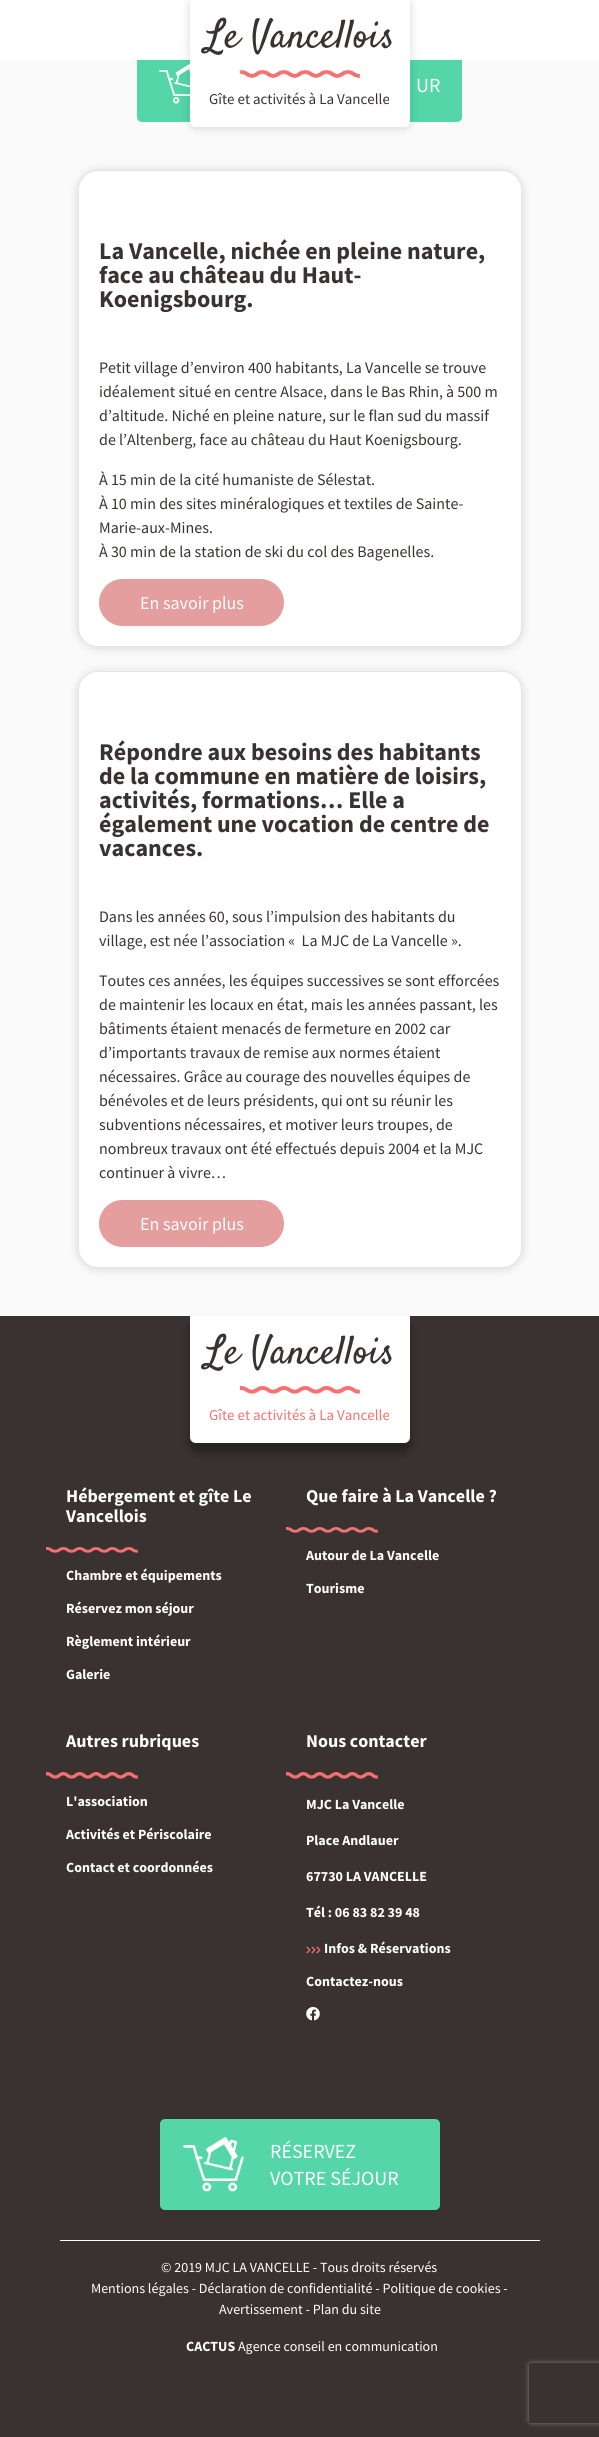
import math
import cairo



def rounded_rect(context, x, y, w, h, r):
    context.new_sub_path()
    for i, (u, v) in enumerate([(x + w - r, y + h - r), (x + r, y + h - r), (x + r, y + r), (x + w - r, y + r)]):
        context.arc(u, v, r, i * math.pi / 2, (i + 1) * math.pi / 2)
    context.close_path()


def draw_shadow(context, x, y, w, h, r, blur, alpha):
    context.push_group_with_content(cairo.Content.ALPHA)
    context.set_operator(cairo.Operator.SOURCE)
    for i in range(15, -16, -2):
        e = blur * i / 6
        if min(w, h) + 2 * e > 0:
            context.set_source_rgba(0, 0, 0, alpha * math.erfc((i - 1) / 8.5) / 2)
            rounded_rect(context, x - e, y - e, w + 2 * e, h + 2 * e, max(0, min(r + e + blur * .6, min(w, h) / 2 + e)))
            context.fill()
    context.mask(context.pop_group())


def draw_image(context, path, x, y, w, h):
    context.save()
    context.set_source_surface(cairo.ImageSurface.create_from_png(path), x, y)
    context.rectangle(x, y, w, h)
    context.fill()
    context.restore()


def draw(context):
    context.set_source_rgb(250 / 255, 250 / 255, 250 / 255)
    context.paint()
    context.set_source_rgb(84 / 255, 214 / 255, 169 / 255)
    rounded_rect(context, 137, 46, 325, 76, 5)
    context.fill()
    context.set_source_rgb(1, 1, 1)
    context.rectangle(0, 0, 599, 60)
    context.fill()
    draw_image(context, "images/2.png", 159, 64, 31, 40)
    context.set_source_rgb(0, 0, 0)
    draw_shadow(context, 188, -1, 224, 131, 8, 4, 0.1)
    context.set_source_rgb(1, 1, 1)
    context.new_path()
    context.move_to(190, 0)
    context.line_to(410, 0)
    context.line_to(410, 121)
    context.curve_to(410, 124.5, 407.5, 127, 404, 127)
    context.line_to(196, 127)
    context.curve_to(192.5, 127, 190, 124.5, 190, 121)
    context.close_path()
    context.fill()
    draw_image(context, "images/1.png", 239, 69, 121, 9)
    context.set_source_rgb(0, 0, 0)
    draw_shadow(context, 76, 169, 448, 481, 22, 4, 0.1)
    context.set_source_rgb(1, 1, 1)
    rounded_rect(context, 78, 170, 444, 477, 20)
    context.fill()
    rounded_rect(context, 78.5, 170.5, 443, 476, 19.5)
    context.set_source_rgba(54 / 255, 25 / 255, 25 / 255, 0.12)
    context.set_line_width(1)
    context.stroke()
    context.set_source_rgb(229 / 255, 158 / 255, 158 / 255)
    rounded_rect(context, 99, 579, 185, 47, 23.5)
    context.fill()
    context.set_source_rgb(0, 0, 0)
    draw_shadow(context, 76, 670, 448, 601, 22, 4, 0.1)
    context.set_source_rgb(1, 1, 1)
    rounded_rect(context, 78, 671, 444, 597, 20)
    context.fill()
    rounded_rect(context, 78.5, 671.5, 443, 596, 19.5)
    context.set_source_rgba(54 / 255, 25 / 255, 25 / 255, 0.12)
    context.stroke()
    context.set_source_rgb(229 / 255, 158 / 255, 158 / 255)
    rounded_rect(context, 99, 1200, 185, 47, 23.5)
    context.fill()
    context.set_source_rgb(57 / 255, 50 / 255, 48 / 255)
    context.rectangle(0, 1316, 599, 1121)
    context.fill()
    context.set_source_rgb(0, 0, 0)
    draw_shadow(context, 188, 1322, 224, 131, 8, 4, 0.3)
    context.set_source_rgb(1, 1, 1)
    context.new_path()
    context.move_to(190, 1316)
    context.line_to(410, 1316)
    context.line_to(410, 1437)
    context.curve_to(410, 1440.5, 407.5, 1443, 404, 1443)
    context.line_to(196, 1443)
    context.curve_to(192.5, 1443, 190, 1440.5, 190, 1437)
    context.close_path()
    context.fill()
    draw_image(context, "images/3.png", 240, 1386, 120, 8)
    draw_image(context, "images/4.png", 46, 1547, 92, 6)
    draw_image(context, "images/5.png", 286, 1527, 92, 6)
    draw_image(context, "images/6.png", 46, 1772, 92, 7)
    draw_image(context, "images/7.png", 286, 1772, 92, 7)
    draw_image(context, "images/8.png", 306, 1946, 5, 8)
    draw_image(context, "images/8.png", 311, 1946, 5, 8)
    draw_image(context, "images/8.png", 316, 1946, 5, 8)
    draw_image(context, "images/9.png", 306, 2007, 14, 14)
    context.set_source_rgb(84 / 255, 214 / 255, 169 / 255)
    rounded_rect(context, 160, 2119, 280, 91, 5)
    context.fill()
    draw_image(context, "images/10.png", 183, 2137, 61, 55)
    context.set_source_rgb(1, 1, 1)
    context.rectangle(60, 2240, 480, 1)
    context.fill()
    context.save()
    context.set_fill_rule(cairo.FillRule.EVEN_ODD)
    context.new_path()
    context.move_to(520, 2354)
    context.line_to(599, 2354)
    context.line_to(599, 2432)
    context.line_to(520, 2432)
    context.close_path()
    context.move_to(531, 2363)
    context.line_to(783, 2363)
    context.curve_to(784, 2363, 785, 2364, 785, 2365)
    context.line_to(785, 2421)
    context.curve_to(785, 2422, 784, 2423, 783, 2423)
    context.line_to(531, 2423)
    context.curve_to(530, 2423, 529, 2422, 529, 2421)
    context.line_to(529, 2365)
    context.curve_to(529, 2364, 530, 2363, 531, 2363)
    context.close_path()
    context.clip()
    context.set_source_rgb(128 / 255, 128 / 255, 128 / 255)
    draw_shadow(context, 529, 2363, 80, 60, 2, 2.5, 1)
    context.restore()
    context.select_font_face("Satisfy")
    context.set_font_size(40)
    context.set_source_rgb(57 / 255, 50 / 255, 48 / 255)
    context.move_to(205, 47)
    context.show_text("Le Vancellois")
    context.select_font_face("Source Sans Pro")
    context.set_font_size(15)
    context.move_to(209, 104)
    context.show_text("Gîte et activités à La Vancelle")
    context.set_font_size(20)
    context.set_source_rgb(1, 1, 1)
    context.move_to(416, 92)
    context.show_text("UR")
    context.select_font_face("Source Sans Pro", cairo.FontSlant.NORMAL, cairo.FontWeight.BOLD)
    context.set_font_size(24)
    context.set_source_rgb(57 / 255, 50 / 255, 48 / 255)
    context.move_to(99, 259)
    context.show_text("La Vancelle, nichée en pleine nature,")
    context.move_to(99, 283)
    context.show_text("face au château du Haut-")
    context.move_to(99, 307)
    context.show_text("Koenigsbourg.")
    context.select_font_face("Source Sans Pro")
    context.set_font_size(16)
    context.move_to(99, 373)
    context.show_text("Petit village d’environ 400 habitants, La Vancelle se trouve")
    context.move_to(99, 397)
    context.show_text("idéalement situé en centre Alsace, dans le Bas Rhin, à 500 m")
    context.move_to(99, 421)
    context.show_text("d’altitude. Niché en pleine nature, sur le flan sud du massif")
    context.move_to(99, 445)
    context.show_text("de l’Altenberg, face au château du Haut Koenigsbourg.")
    context.move_to(99, 485)
    context.show_text("À 15 min de la cité humaniste de Sélestat.")
    context.move_to(99, 509)
    context.show_text("À 10 min des sites minéralogiques et textiles de Sainte-")
    context.move_to(99, 533)
    context.show_text("Marie-aux-Mines.")
    context.move_to(99, 557)
    context.show_text("À 30 min de la station de ski du col des Bagenelles.")
    context.set_font_size(18)
    context.set_source_rgb(1, 1, 1)
    context.move_to(140, 609)
    context.show_text("En savoir plus")
    context.select_font_face("Source Sans Pro", cairo.FontSlant.NORMAL, cairo.FontWeight.BOLD)
    context.set_font_size(24)
    context.set_source_rgb(57 / 255, 50 / 255, 48 / 255)
    context.move_to(99, 760)
    context.show_text("Répondre aux besoins des habitants")
    context.move_to(99, 784)
    context.show_text("de la commune en matière de loisirs,")
    context.move_to(99, 808)
    context.show_text("activités, formations… Elle a")
    context.move_to(99, 832)
    context.show_text("également une vocation de centre de")
    context.move_to(99, 856)
    context.show_text("vacances.")
    context.select_font_face("Source Sans Pro")
    context.set_font_size(16)
    context.move_to(99, 922)
    context.show_text("Dans les années 60, sous l’impulsion des habitants du")
    context.move_to(99, 946)
    context.show_text("village, est née l’association «  La MJC de La Vancelle ».")
    context.move_to(99, 986)
    context.show_text("Toutes ces années, les équipes successives se sont efforcées")
    context.move_to(99, 1010)
    context.show_text("de maintenir les locaux en état, mais les années passant, les")
    context.move_to(99, 1034)
    context.show_text("bâtiments étaient menacés de fermeture en 2002 car")
    context.move_to(99, 1058)
    context.show_text("d’importants travaux de remise aux normes étaient")
    context.move_to(99, 1082)
    context.show_text("nécessaires. Grâce au courage des nouvelles équipes de")
    context.move_to(99, 1106)
    context.show_text("bénévoles et de leurs présidents, qui ont su réunir les")
    context.move_to(99, 1130)
    context.show_text("subventions nécessaires, et motiver leurs troupes, de")
    context.move_to(99, 1154)
    context.show_text("nombreux travaux ont été effectués depuis 2004 et la MJC")
    context.move_to(99, 1178)
    context.show_text("continuer à vivre…")
    context.set_font_size(18)
    context.set_source_rgb(1, 1, 1)
    context.move_to(140, 1230)
    context.show_text("En savoir plus")
    context.select_font_face("Satisfy")
    context.set_font_size(40)
    context.set_source_rgb(57 / 255, 50 / 255, 48 / 255)
    context.move_to(205, 1363)
    context.show_text("Le Vancellois")
    context.select_font_face("Source Sans Pro")
    context.set_font_size(15)
    context.set_source_rgb(245 / 255, 113 / 255, 113 / 255)
    context.move_to(209, 1420)
    context.show_text("Gîte et activités à La Vancelle")
    context.select_font_face("Source Sans Pro", cairo.FontSlant.NORMAL, cairo.FontWeight.BOLD)
    context.set_font_size(18)
    context.set_source_rgb(1, 1, 1)
    context.move_to(66, 1502)
    context.show_text("Hébergement et gîte Le")
    context.move_to(66, 1522)
    context.show_text("Vancellois")
    context.set_font_size(14)
    context.move_to(66, 1580)
    context.show_text("Chambre et équipements")
    context.move_to(66, 1613)
    context.show_text("Réservez mon séjour")
    context.move_to(66, 1646)
    context.show_text("Règlement intérieur")
    context.move_to(66, 1679)
    context.show_text("Galerie")
    context.set_font_size(18)
    context.move_to(306, 1502)
    context.show_text("Que faire à La Vancelle ?")
    context.set_font_size(14)
    context.move_to(306, 1560)
    context.show_text("Autour de La Vancelle")
    context.move_to(306, 1593)
    context.show_text("Tourisme")
    context.set_font_size(18)
    context.move_to(66, 1747)
    context.show_text("Autres rubriques")
    context.set_font_size(14)
    context.move_to(66, 1806)
    context.show_text("L'association")
    context.move_to(66, 1839)
    context.show_text("Activités et Périscolaire")
    context.move_to(66, 1872)
    context.show_text("Contact et coordonnées")
    context.set_font_size(18)
    context.move_to(306, 1747)
    context.show_text("Nous contacter")
    context.set_font_size(14)
    context.move_to(306, 1809)
    context.show_text("MJC La Vancelle")
    context.move_to(306, 1845)
    context.show_text("Place Andlauer")
    context.move_to(306, 1881)
    context.show_text("67730 LA VANCELLE")
    context.move_to(306, 1917)
    context.show_text("Tél : 06 83 82 39 48")
    context.move_to(324, 1953)
    context.show_text("Infos & Réservations")
    context.move_to(306, 1986)
    context.show_text("Contactez-nous")
    context.select_font_face("Source Sans Pro")
    context.set_font_size(20)
    context.move_to(270, 2158)
    context.show_text("RÉSERVEZ")
    context.move_to(270, 2185)
    context.show_text("VOTRE SÉJOUR")
    context.set_font_size(14)
    context.move_to(161, 2272)
    context.show_text("© 2019 MJC LA VANCELLE - Tous droits réservés")
    context.move_to(91, 2293)
    context.show_text("Mentions légales - Déclaration de confidentialité - Politique de cookies -")
    context.move_to(219, 2314)
    context.show_text("Avertissement - Plan du site")
    context.select_font_face("Source Sans Pro", cairo.FontSlant.NORMAL, cairo.FontWeight.BOLD)
    context.move_to(186, 2351)
    context.show_text("CACTUS")
    context.select_font_face("Source Sans Pro")
    context.move_to(238, 2351)
    context.show_text("Agence conseil en communication")


surface = cairo.ImageSurface(cairo.Format.RGB24, 599, 2437)
context = cairo.Context(surface)
options = cairo.FontOptions()
options.set_hint_metrics(cairo.HintMetrics.OFF)
options.set_hint_style(cairo.HintStyle.NONE)
context.set_font_options(options)
context.set_miter_limit(4)
draw(context)
surface.write_to_png("out.png")
